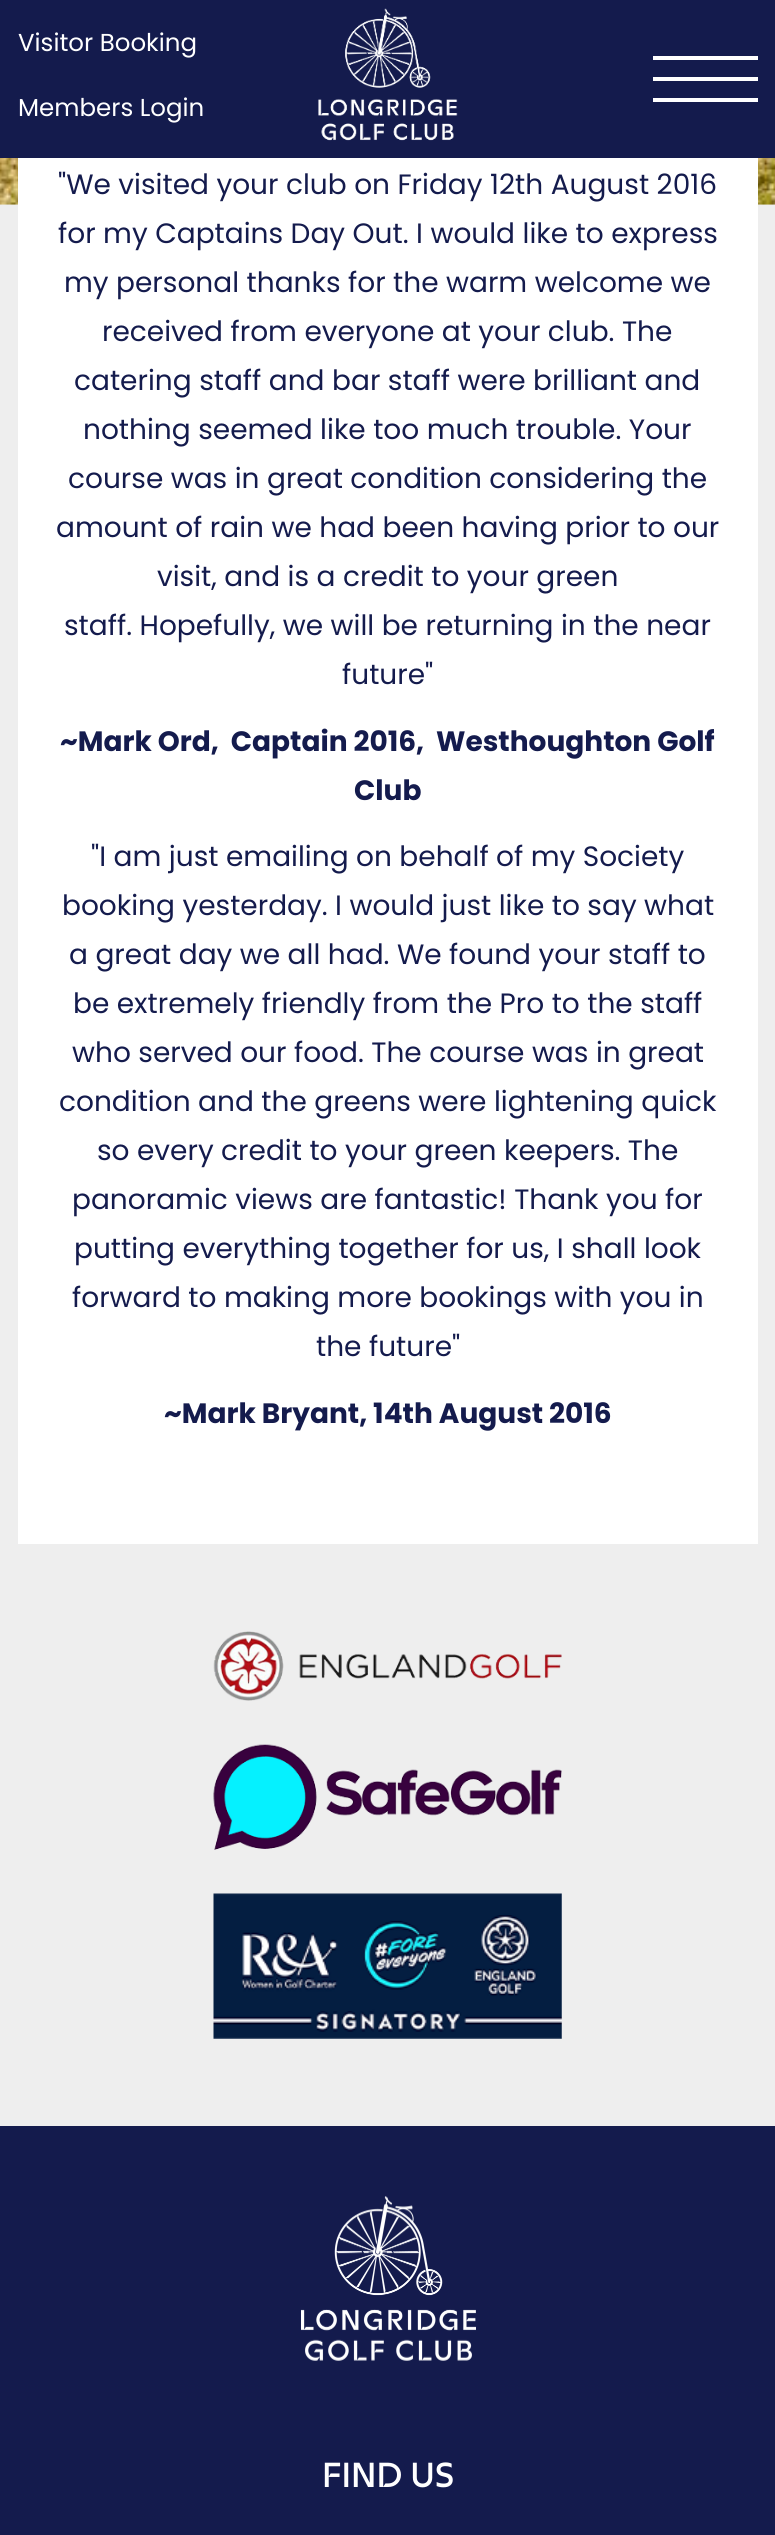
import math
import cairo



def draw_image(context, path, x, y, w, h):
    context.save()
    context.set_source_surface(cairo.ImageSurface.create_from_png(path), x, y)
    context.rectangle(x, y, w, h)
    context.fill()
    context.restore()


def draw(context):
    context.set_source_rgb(20 / 255, 27 / 255, 77 / 255)
    context.paint()
    draw_image(context, "images/1.png", 318, 8, 140, 133)
    context.set_source_rgb(1, 1, 1)
    context.rectangle(653, 56, 105, 4)
    context.fill()
    context.rectangle(653, 77, 105, 4)
    context.fill()
    context.rectangle(653, 98, 105, 4)
    context.fill()
    context.set_source_rgb(238 / 255, 238 / 255, 238 / 255)
    context.rectangle(0, 204, 775, 1922)
    context.fill()
    draw_image(context, "images/2.png", 0, 158, 775, 47)
    context.set_source_rgb(1, 1, 1)
    context.rectangle(18, 158, 740, 1386)
    context.fill()
    draw_image(context, "images/3.png", 213, 1631, 349, 70)
    draw_image(context, "images/4.png", 213, 1744, 349, 106)
    draw_image(context, "images/5.png", 213, 1893, 349, 146)
    draw_image(context, "images/6.png", 301, 2196, 175, 165)
    context.select_font_face("Poppins")
    context.set_font_size(24.5)
    context.move_to(18, 51)
    context.show_text("Visitor Booking")
    context.move_to(18, 116)
    context.show_text("Members Login")
    context.set_font_size(28)
    context.set_source_rgb(20 / 255, 27 / 255, 77 / 255)
    context.move_to(58, 194)
    context.show_text("\"We visited your club on Friday 12th August 2016")
    context.move_to(58, 243)
    context.show_text("for my Captains Day Out. I would like to express")
    context.move_to(64, 292)
    context.show_text("my personal thanks for the warm welcome we")
    context.move_to(102, 341)
    context.show_text("received from everyone at your club. The")
    context.move_to(74, 390)
    context.show_text("catering staff and bar staff were brilliant and")
    context.move_to(83, 439)
    context.show_text("nothing seemed like too much trouble. Your")
    context.move_to(68, 488)
    context.show_text("course was in great condition considering the")
    context.move_to(56, 537)
    context.show_text("amount of rain we had been having prior to our")
    context.move_to(157, 586)
    context.show_text("visit, and is a credit to your green")
    context.move_to(64, 635)
    context.show_text("staff. Hopefully, we will be returning in the near")
    context.move_to(342, 684)
    context.show_text("future\"")
    context.select_font_face("Poppins", cairo.FontSlant.NORMAL, cairo.FontWeight.BOLD)
    context.move_to(60, 751)
    context.show_text("~Mark Ord,  Captain 2016,  Westhoughton Golf")
    context.move_to(354, 800)
    context.show_text("Club")
    context.select_font_face("Poppins")
    context.move_to(91, 866)
    context.show_text("\"I am just emailing on behalf of my Society")
    context.move_to(62, 915)
    context.show_text("booking yesterday. I would just like to say what")
    context.move_to(69, 964)
    context.show_text("a great day we all had. We found your staff to")
    context.move_to(73, 1013)
    context.show_text("be extremely friendly from the Pro to the staff")
    context.move_to(72, 1062)
    context.show_text("who served our food. The course was in great")
    context.move_to(59, 1111)
    context.show_text("condition and the greens were lightening quick")
    context.move_to(97, 1160)
    context.show_text("so every credit to your green keepers. The")
    context.move_to(72, 1209)
    context.show_text("panoramic views are fantastic! Thank you for")
    context.move_to(74, 1258)
    context.show_text("putting everything together for us, I shall look")
    context.move_to(72, 1307)
    context.show_text("forward to making more bookings with you in")
    context.move_to(316, 1356)
    context.show_text("the future\"")
    context.select_font_face("Poppins", cairo.FontSlant.NORMAL, cairo.FontWeight.BOLD)
    context.move_to(164, 1423)
    context.show_text("~Mark Bryant, 14th August 2016")
    context.select_font_face("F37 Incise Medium")
    context.set_font_size(35)
    context.set_source_rgb(1, 1, 1)
    context.move_to(322, 2487)
    context.show_text("FIND US")


surface = cairo.ImageSurface(cairo.Format.RGB24, 775, 2535)
context = cairo.Context(surface)
options = cairo.FontOptions()
options.set_hint_metrics(cairo.HintMetrics.OFF)
options.set_hint_style(cairo.HintStyle.NONE)
context.set_font_options(options)
context.set_miter_limit(4)
draw(context)
surface.write_to_png("out.png")
